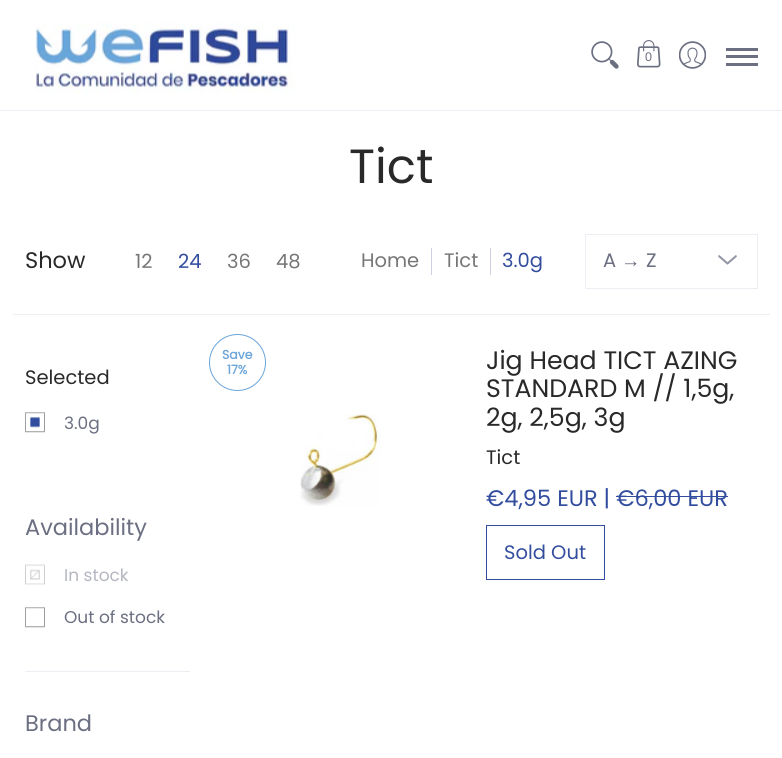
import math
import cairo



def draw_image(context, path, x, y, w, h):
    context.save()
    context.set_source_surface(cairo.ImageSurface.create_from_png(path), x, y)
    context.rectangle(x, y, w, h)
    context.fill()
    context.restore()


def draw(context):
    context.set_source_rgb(1, 1, 1)
    context.paint()
    context.set_source_rgb(237 / 255, 238 / 255, 244 / 255)
    context.rectangle(0, 110, 782, 1)
    context.fill()
    draw_image(context, "images/1.png", 35, 22, 260, 71)
    draw_image(context, "images/2.png", 591, 41, 28, 28)
    draw_image(context, "images/3.png", 637, 40, 24, 28)
    draw_image(context, "images/4.png", 679, 41, 27, 28)
    context.set_source_rgb(107 / 255, 111 / 255, 129 / 255)
    context.rectangle(726, 48, 32, 3)
    context.fill()
    context.rectangle(726, 63, 32, 3)
    context.fill()
    context.rectangle(726, 55, 32, 3)
    context.fill()
    context.set_source_rgb(237 / 255, 238 / 255, 244 / 255)
    context.rectangle(13, 314, 757, 1)
    context.fill()
    context.set_source_rgb(205 / 255, 208 / 255, 225 / 255)
    context.rectangle(431, 248, 1, 27)
    context.fill()
    context.rectangle(490, 248, 1, 27)
    context.fill()
    draw_image(context, "images/5.png", 718, 255, 19, 10)
    context.rectangle(585.5, 234.5, 172, 54)
    context.set_source_rgb(237 / 255, 238 / 255, 244 / 255)
    context.set_line_width(1)
    context.stroke()
    draw_image(context, "images/6.png", 25, 412, 20, 21)
    draw_image(context, "images/7.png", 30, 417, 10, 11)
    context.rectangle(25, 671, 165, 1)
    context.fill()
    draw_image(context, "images/8.png", 25, 564, 20, 21)
    draw_image(context, "images/9.png", 30, 569, 10, 11)
    draw_image(context, "images/6.png", 25, 607, 20, 21)
    context.arc(237.5, 362.5, 28, 0, 2 * math.pi)
    context.set_source_rgb(107 / 255, 165 / 255, 218 / 255)
    context.stroke()
    draw_image(context, "images/10.png", 300, 414, 80, 92)
    context.set_source_rgb(50 / 255, 77 / 255, 158 / 255)
    context.rectangle(616, 496, 112, 1)
    context.fill()
    context.rectangle(486.5, 525.5, 118, 54)
    context.stroke()
    context.select_font_face("Liberation Sans")
    context.set_font_size(12.5)
    context.set_source_rgb(107 / 255, 111 / 255, 129 / 255)
    context.move_to(645, 61)
    context.show_text("0")
    context.select_font_face("Poppins")
    context.set_font_size(48)
    context.set_source_rgb(41 / 255, 41 / 255, 41 / 255)
    context.move_to(349, 183)
    context.show_text("Tict")
    context.set_font_size(22.5)
    context.move_to(25, 268)
    context.show_text("Show")
    context.set_font_size(19.5)
    context.set_source_rgb(118 / 255, 118 / 255, 118 / 255)
    context.move_to(135, 268)
    context.show_text("12")
    context.set_source_rgb(50 / 255, 77 / 255, 158 / 255)
    context.move_to(178, 268)
    context.show_text("24")
    context.set_source_rgb(118 / 255, 118 / 255, 118 / 255)
    context.move_to(227, 268)
    context.show_text("36")
    context.move_to(276, 268)
    context.show_text("48")
    context.move_to(361, 267)
    context.show_text("Home")
    context.move_to(444, 267)
    context.show_text("Tict")
    context.set_source_rgb(50 / 255, 77 / 255, 158 / 255)
    context.move_to(502, 267)
    context.show_text("3.0g")
    context.set_source_rgb(107 / 255, 111 / 255, 129 / 255)
    context.move_to(603, 267)
    context.show_text("A")
    context.select_font_face("Liberation Sans")
    context.move_to(621, 267)
    context.show_text("→")
    context.select_font_face("Poppins")
    context.move_to(646, 267)
    context.show_text("Z")
    context.set_source_rgb(41 / 255, 41 / 255, 41 / 255)
    context.move_to(25, 384)
    context.show_text("Selected")
    context.set_font_size(17)
    context.set_source_rgb(107 / 255, 111 / 255, 129 / 255)
    context.move_to(64, 429)
    context.show_text("3.0g")
    context.set_font_size(22.5)
    context.move_to(25, 535)
    context.show_text("Availability")
    context.set_font_size(17)
    context.set_source_rgb(181 / 255, 183 / 255, 192 / 255)
    context.move_to(64, 581)
    context.show_text("In stock")
    context.set_source_rgb(107 / 255, 111 / 255, 129 / 255)
    context.move_to(64, 623)
    context.show_text("Out of stock")
    context.set_font_size(22.5)
    context.move_to(25, 731)
    context.show_text("Brand")
    context.select_font_face("Poppins", cairo.FontSlant.NORMAL, cairo.FontWeight.BOLD)
    context.set_font_size(12.5)
    context.set_source_rgb(107 / 255, 165 / 255, 218 / 255)
    context.move_to(222, 359)
    context.show_text("Save")
    context.move_to(227, 374)
    context.show_text("17%")
    context.select_font_face("Poppins")
    context.set_font_size(25.25)
    context.set_source_rgb(41 / 255, 41 / 255, 41 / 255)
    context.move_to(486, 369)
    context.show_text("Jig Head TICT AZING")
    context.move_to(486, 397)
    context.show_text("STANDARD M // 1,5g,")
    context.move_to(486, 426)
    context.show_text("2g, 2,5g, 3g")
    context.set_font_size(19.5)
    context.move_to(486, 464)
    context.show_text("Tict")
    context.set_font_size(22.5)
    context.set_source_rgb(50 / 255, 77 / 255, 158 / 255)
    context.move_to(486, 506)
    context.show_text("€4,95 EUR | €6,00 EUR")
    context.set_font_size(19.5)
    context.move_to(504, 559)
    context.show_text("Sold Out")


surface = cairo.ImageSurface(cairo.Format.RGB24, 782, 758)
context = cairo.Context(surface)
options = cairo.FontOptions()
options.set_hint_metrics(cairo.HintMetrics.OFF)
options.set_hint_style(cairo.HintStyle.NONE)
context.set_font_options(options)
context.set_miter_limit(4)
draw(context)
surface.write_to_png("out.png")
